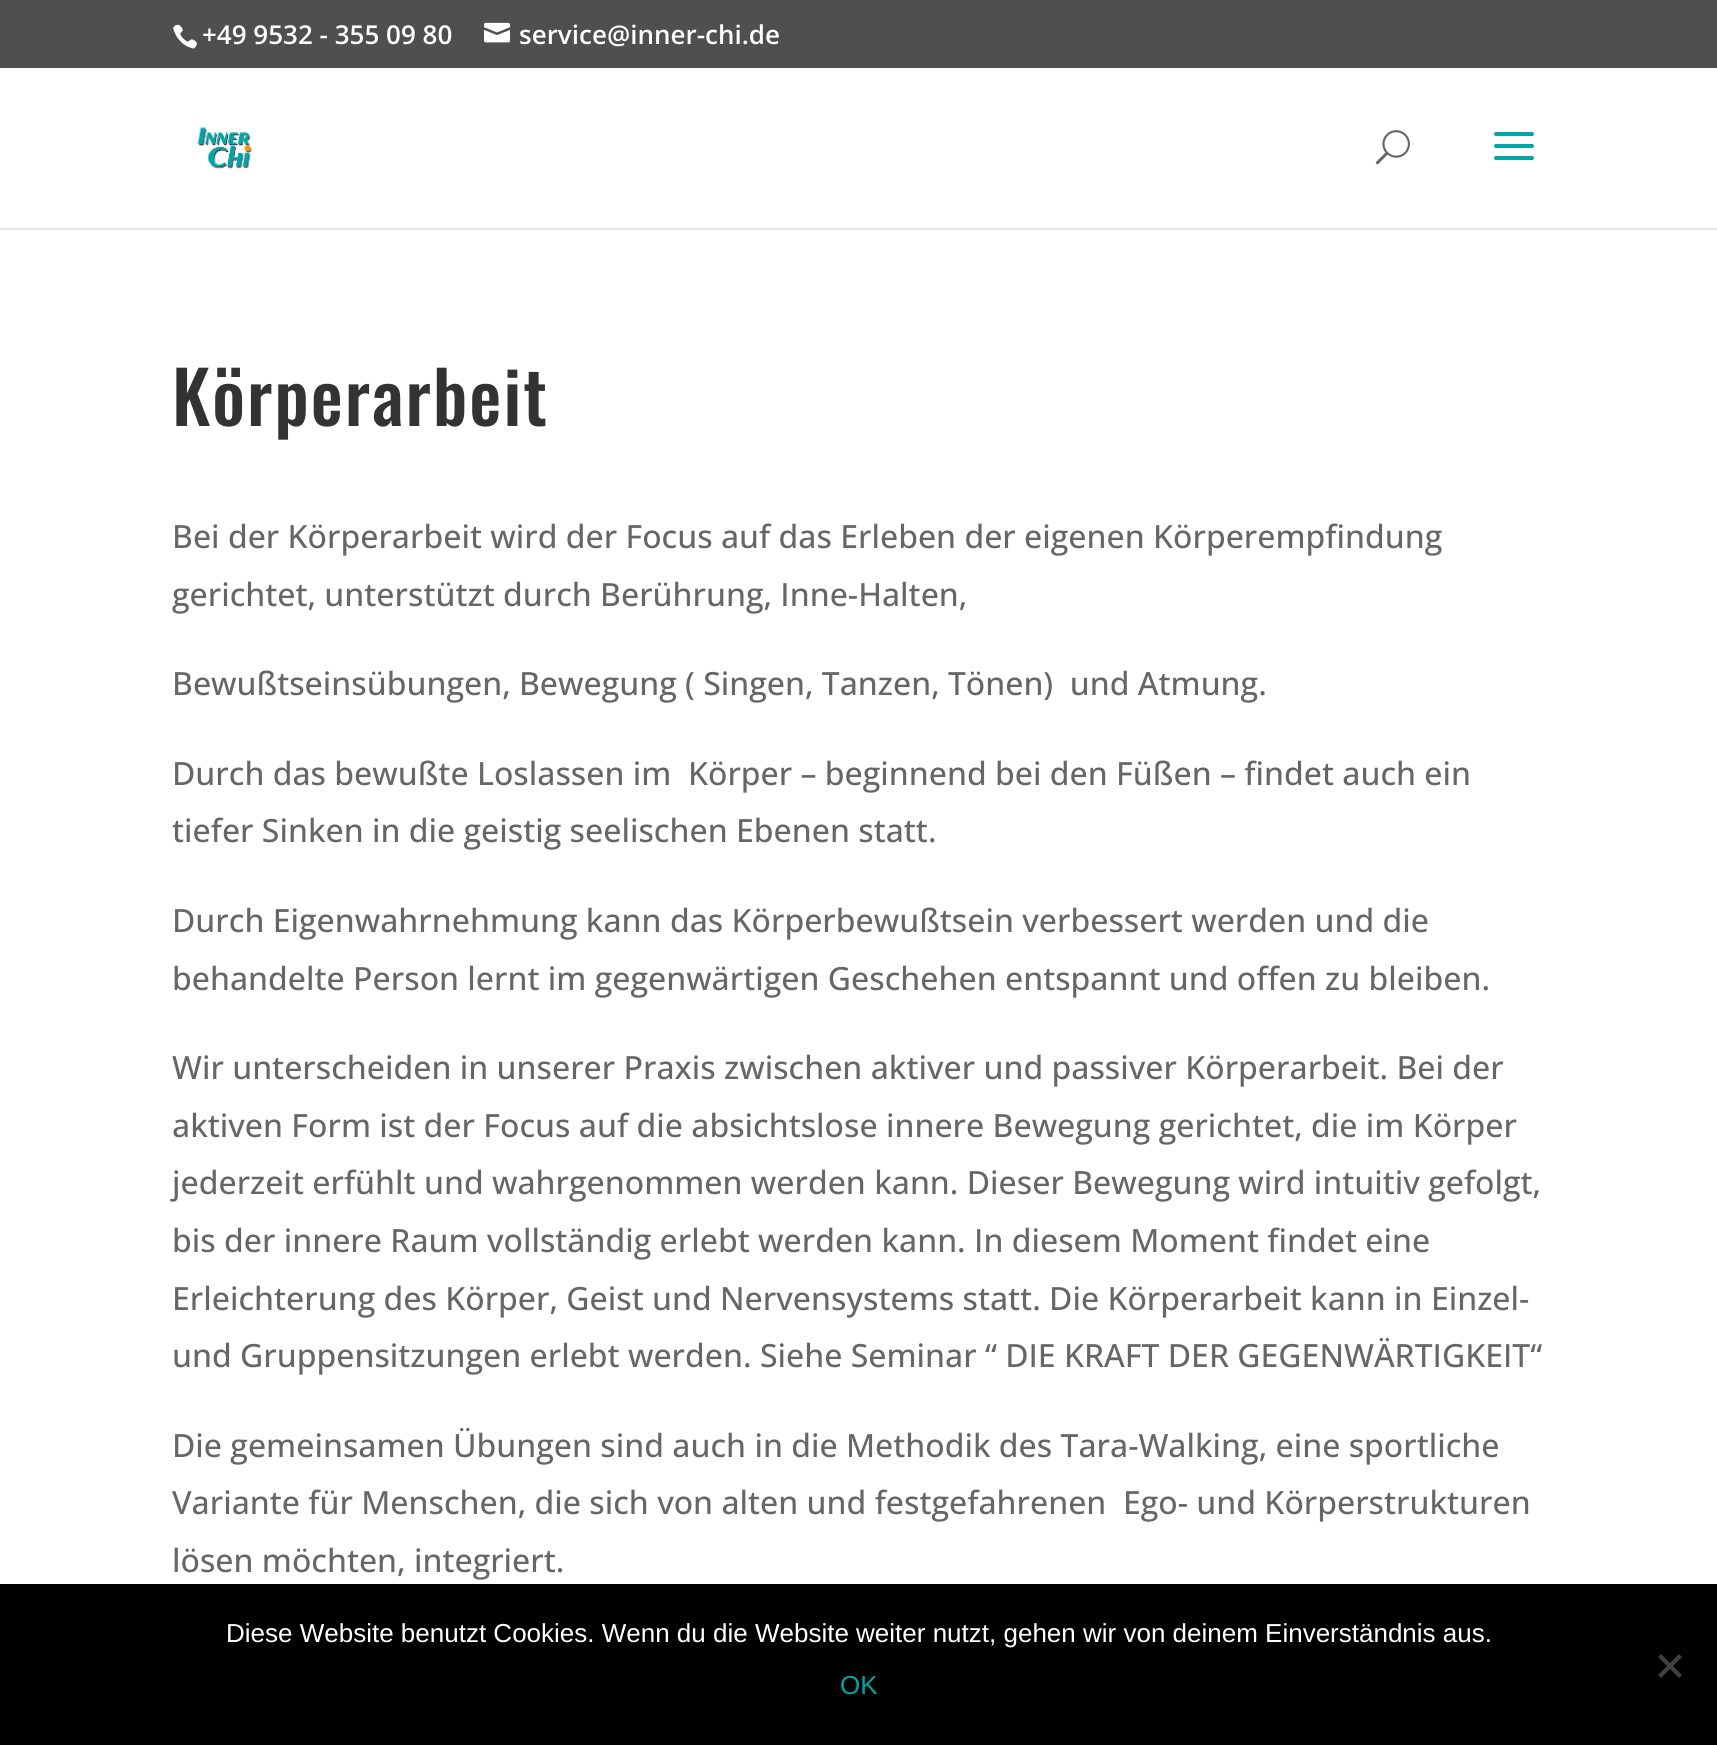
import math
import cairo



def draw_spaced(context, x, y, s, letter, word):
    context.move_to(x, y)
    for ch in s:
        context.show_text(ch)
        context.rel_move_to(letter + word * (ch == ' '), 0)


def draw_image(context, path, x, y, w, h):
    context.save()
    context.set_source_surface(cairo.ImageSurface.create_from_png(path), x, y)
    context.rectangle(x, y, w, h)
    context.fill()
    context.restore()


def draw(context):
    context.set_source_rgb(1, 1, 1)
    context.paint()
    context.set_source_rgb(79 / 255, 79 / 255, 79 / 255)
    context.rectangle(0, 0, 1717, 68)
    context.fill()
    draw_image(context, "images/1.png", 173, 24, 24, 25)
    draw_image(context, "images/2.png", 484, 22, 26, 21)
    context.set_source_rgb(230 / 255, 230 / 255, 230 / 255)
    context.rectangle(0, 228, 1717, 2)
    context.fill()
    draw_image(context, "images/3.png", 197, 127, 55, 42)
    draw_image(context, "images/4.png", 1375, 130, 35, 35)
    draw_image(context, "images/5.png", 1494, 132, 40, 28)
    context.set_source_rgb(0, 0, 0)
    context.rectangle(0, 1584, 1717, 161)
    context.fill()
    context.set_source_rgb(64 / 255, 64 / 255, 64 / 255)
    context.new_path()
    context.move_to(1679, 1654)
    context.line_to(1682, 1657)
    context.line_to(1661, 1678)
    context.line_to(1658, 1675)
    context.close_path()
    context.fill()
    context.new_path()
    context.move_to(1658, 1657)
    context.line_to(1661, 1654)
    context.line_to(1682, 1675)
    context.line_to(1679, 1678)
    context.close_path()
    context.fill()
    context.select_font_face("Open Sans SemiBold")
    context.set_font_size(26)
    context.set_source_rgb(1, 1, 1)
    context.move_to(202, 44)
    context.show_text("+49 9532 - 355 09 80")
    context.move_to(519, 44)
    context.show_text("service@inner-chi.de")
    context.select_font_face("Oswald Medium")
    context.set_font_size(72)
    context.set_source_rgb(51 / 255, 51 / 255, 51 / 255)
    draw_spaced(context, 172, 426, "Körperarbeit", 2, 0)
    context.select_font_face("Open Sans Medium")
    context.set_font_size(32)
    context.set_source_rgb(102 / 255, 102 / 255, 102 / 255)
    context.move_to(172, 548)
    context.show_text("Bei der Körperarbeit wird der Focus auf das Erleben der eigenen Körperempfindung")
    context.move_to(172, 606)
    context.show_text("gerichtet, unterstützt durch Berührung, Inne-Halten,")
    context.move_to(172, 695)
    context.show_text("Bewußtseinsübungen, Bewegung ( Singen, Tanzen, Tönen)  und Atmung.")
    context.move_to(172, 785)
    context.show_text("Durch das bewußte Loslassen im  Körper – beginnend bei den Füßen – findet auch ein")
    context.move_to(172, 842)
    context.show_text("tiefer Sinken in die geistig seelischen Ebenen statt.")
    context.move_to(172, 932)
    context.show_text("Durch Eigenwahrnehmung kann das Körperbewußtsein verbessert werden und die")
    context.move_to(172, 990)
    context.show_text("behandelte Person lernt im gegenwärtigen Geschehen entspannt und offen zu bleiben.")
    context.move_to(172, 1079)
    context.show_text("Wir unterscheiden in unserer Praxis zwischen aktiver und passiver Körperarbeit. Bei der")
    context.move_to(172, 1137)
    context.show_text("aktiven Form ist der Focus auf die absichtslose innere Bewegung gerichtet, die im Körper")
    context.move_to(172, 1194)
    context.show_text("jederzeit erfühlt und wahrgenommen werden kann. Dieser Bewegung wird intuitiv gefolgt,")
    context.move_to(172, 1252)
    context.show_text("bis der innere Raum vollständig erlebt werden kann. In diesem Moment findet eine")
    context.move_to(172, 1310)
    context.show_text("Erleichterung des Körper, Geist und Nervensystems statt. Die Körperarbeit kann in Einzel-")
    context.move_to(172, 1367)
    context.show_text("und Gruppensitzungen erlebt werden. Siehe Seminar “ DIE KRAFT DER GEGENWÄRTIGKEIT“")
    context.move_to(172, 1457)
    context.show_text("Die gemeinsamen Übungen sind auch in die Methodik des Tara-Walking, eine sportliche")
    context.move_to(172, 1514)
    context.show_text("Variante für Menschen, die sich von alten und festgefahrenen  Ego- und Körperstrukturen")
    context.move_to(172, 1572)
    context.show_text("lösen möchten, integriert.")
    context.select_font_face("Liberation Sans")
    context.set_font_size(26)
    context.set_source_rgb(1, 1, 1)
    context.move_to(226, 1642)
    context.show_text("Diese Website benutzt Cookies. Wenn du die Website weiter nutzt, gehen wir von deinem Einverständnis aus.")
    context.set_source_rgb(0, 166 / 255, 166 / 255)
    context.move_to(840, 1694)
    context.show_text("OK")


surface = cairo.ImageSurface(cairo.Format.RGB24, 1717, 1745)
context = cairo.Context(surface)
options = cairo.FontOptions()
options.set_hint_metrics(cairo.HintMetrics.OFF)
options.set_hint_style(cairo.HintStyle.NONE)
context.set_font_options(options)
context.set_miter_limit(4)
draw(context)
surface.write_to_png("out.png")
